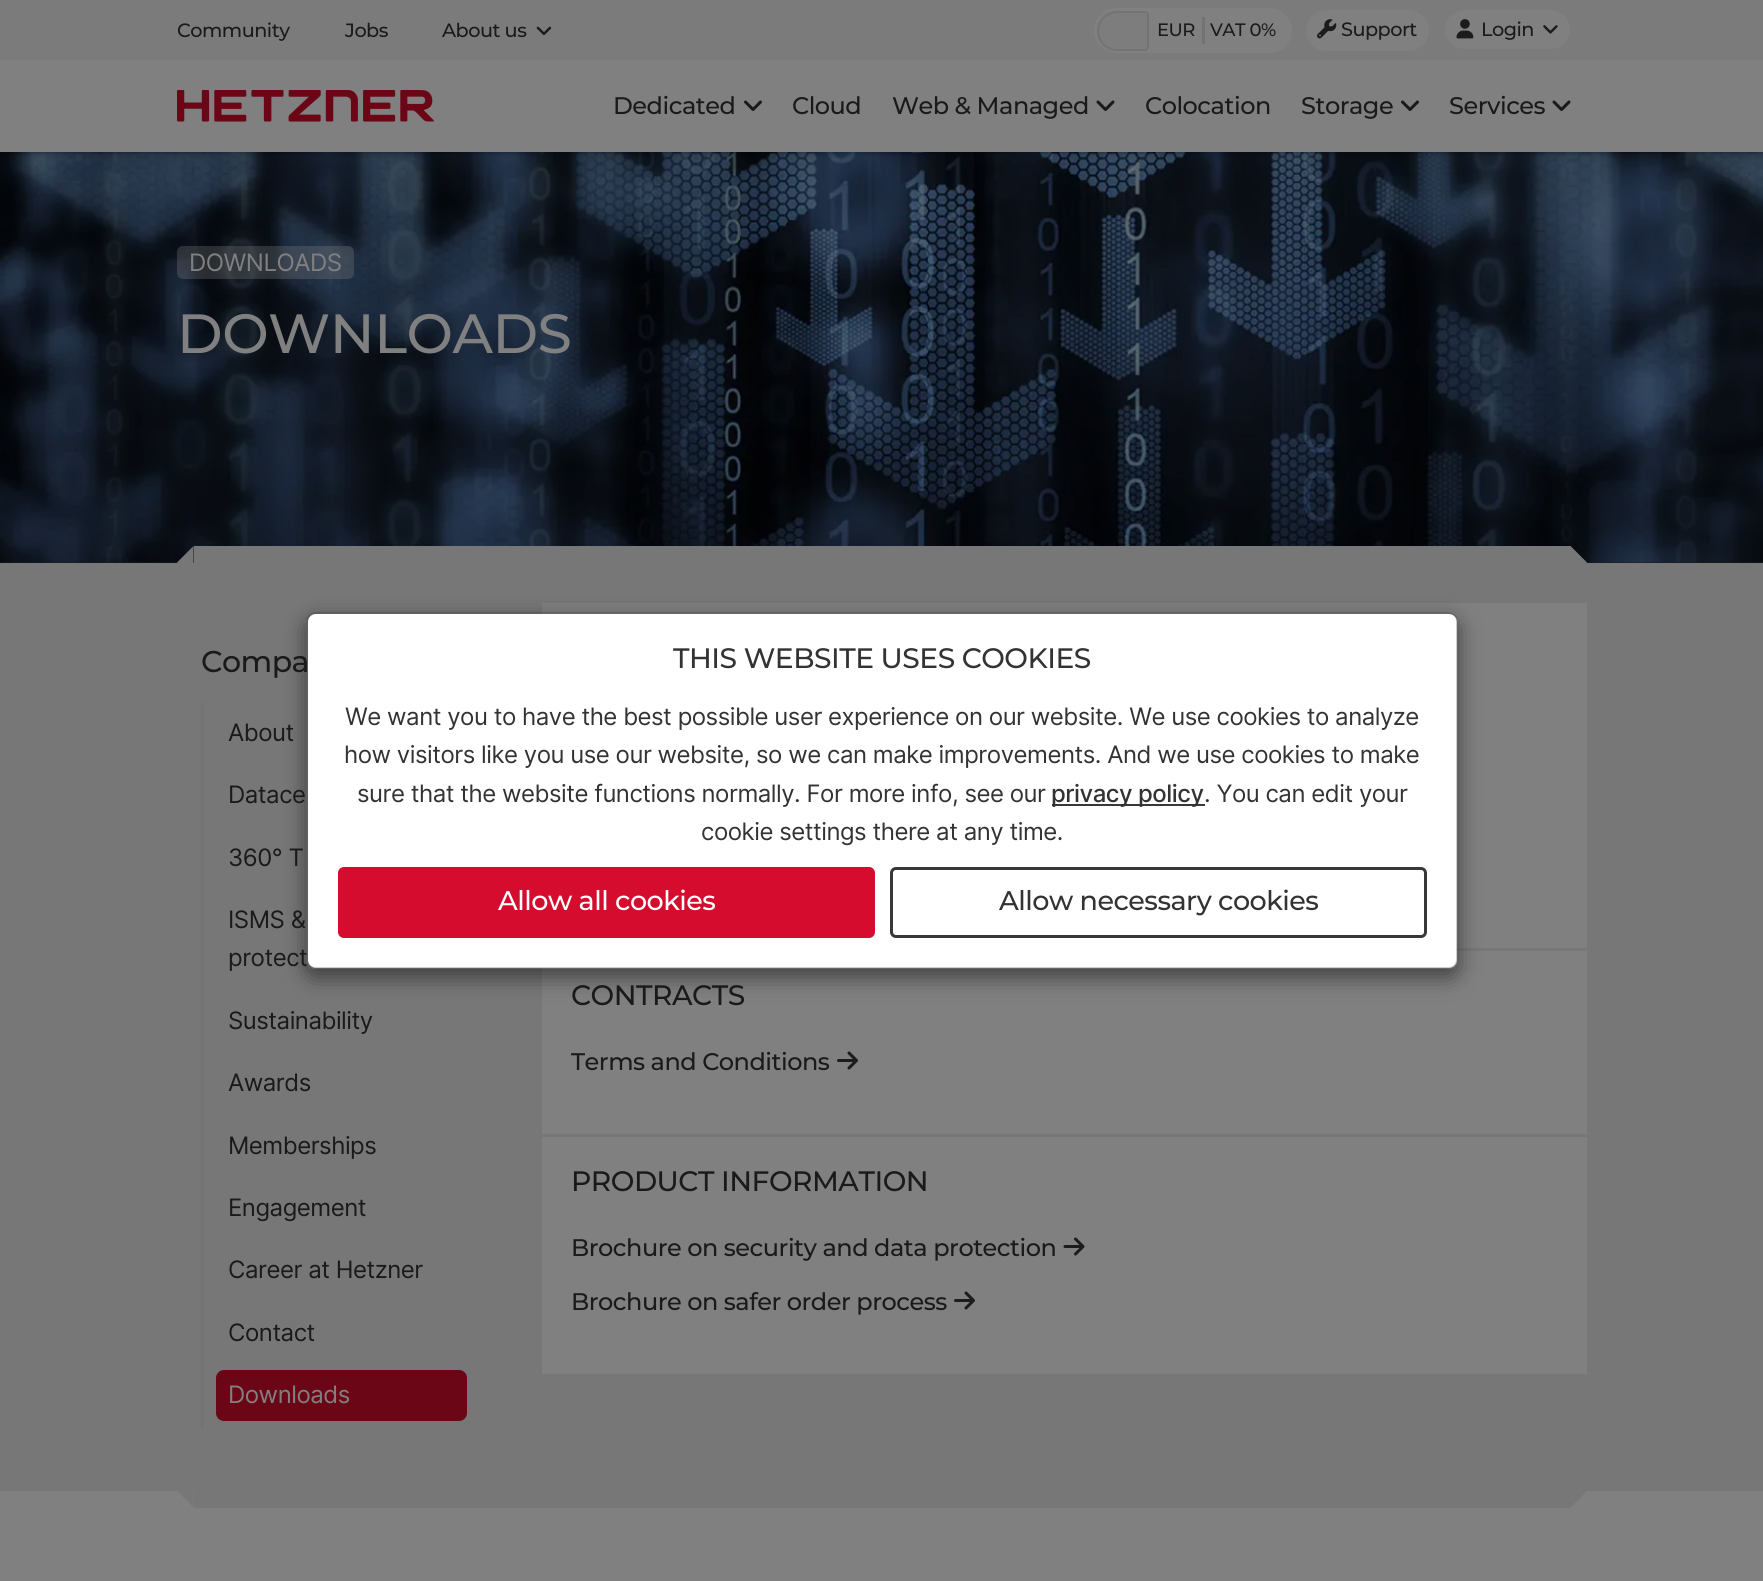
import math
import cairo



def draw_spaced(context, x, y, s, letter, word):
    context.move_to(x, y)
    for ch in s:
        context.show_text(ch)
        context.rel_move_to(letter + word * (ch == ' '), 0)


def rounded_rect(context, x, y, w, h, r):
    context.new_sub_path()
    for i, (u, v) in enumerate([(x + w - r, y + h - r), (x + r, y + h - r), (x + r, y + r), (x + w - r, y + r)]):
        context.arc(u, v, r, i * math.pi / 2, (i + 1) * math.pi / 2)
    context.close_path()


def draw_shadow(context, x, y, w, h, r, blur, alpha):
    context.push_group_with_content(cairo.Content.ALPHA)
    context.set_operator(cairo.Operator.SOURCE)
    for i in range(15, -16, -2):
        e = blur * i / 6
        if min(w, h) + 2 * e > 0:
            context.set_source_rgba(0, 0, 0, alpha * math.erfc((i - 1) / 8.5) / 2)
            rounded_rect(context, x - e, y - e, w + 2 * e, h + 2 * e, max(0, min(r + e + blur * .6, min(w, h) / 2 + e)))
            context.fill()
    context.mask(context.pop_group())


def draw_image(context, path, x, y, w, h):
    context.save()
    context.set_source_surface(cairo.ImageSurface.create_from_png(path), x, y)
    context.rectangle(x, y, w, h)
    context.fill()
    context.restore()


def draw(context):
    context.set_source_rgb(128 / 255, 128 / 255, 128 / 255)
    context.paint()
    context.set_source_rgb(28 / 255, 28 / 255, 28 / 255)
    context.rectangle(0, 562, 1763, 1)
    context.fill()
    draw_image(context, "images/8.png", 0, 152, 1763, 411)
    context.set_source_rgb(0, 0, 0)
    draw_shadow(context, 0, 2, 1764, 151, 0, 3, 0.4)
    context.set_source_rgb(128 / 255, 128 / 255, 128 / 255)
    context.rectangle(0, 60, 1763, 92)
    context.fill()
    context.set_source_rgb(123 / 255, 123 / 255, 123 / 255)
    context.rectangle(0, 0, 1763, 60)
    context.fill()
    draw_image(context, "images/1.png", 536, 26, 16, 10)
    context.set_source_rgb(128 / 255, 128 / 255, 128 / 255)
    rounded_rect(context, 1094, 8, 198, 45, 22.5)
    context.fill()
    context.set_source_rgb(125 / 255, 125 / 255, 125 / 255)
    context.new_path()
    context.move_to(1117, 12)
    context.line_to(1145, 12)
    context.curve_to(1146.5, 12, 1148, 13.5, 1148, 15)
    context.line_to(1148, 47)
    context.curve_to(1148, 48.5, 1146.5, 50, 1145, 50)
    context.line_to(1117, 50)
    context.curve_to(1106.5, 50, 1098, 41.5, 1098, 31)
    context.curve_to(1098, 20.5, 1106.5, 12, 1117, 12)
    context.close_path()
    context.fill_preserve()
    context.set_source_rgb(115 / 255, 115 / 255, 115 / 255)
    context.stroke()
    context.rectangle(1202, 17, 3, 27)
    context.fill()
    context.set_source_rgb(128 / 255, 128 / 255, 128 / 255)
    rounded_rect(context, 1305, 9, 125, 43, 21.5)
    context.fill_preserve()
    context.set_source_rgb(123 / 255, 123 / 255, 123 / 255)
    context.stroke()
    draw_image(context, "images/2.png", 1317, 19, 20, 20)
    context.set_source_rgb(128 / 255, 128 / 255, 128 / 255)
    rounded_rect(context, 1444, 9, 127, 41, 20.5)
    context.fill_preserve()
    context.set_source_rgb(123 / 255, 123 / 255, 123 / 255)
    context.stroke()
    draw_image(context, "images/3.png", 1456, 19, 18, 20)
    draw_image(context, "images/4.png", 1543, 25, 15, 9)
    draw_image(context, "images/5.png", 177, 90, 257, 32)
    draw_image(context, "images/6.png", 744, 100, 18, 11)
    draw_image(context, "images/7.png", 1096, 100, 19, 11)
    draw_image(context, "images/6.png", 1401, 100, 18, 11)
    draw_image(context, "images/7.png", 1552, 100, 19, 11)
    context.set_source_rgb(119 / 255, 119 / 255, 119 / 255)
    context.rectangle(0, 563, 1763, 928)
    context.fill()
    context.set_source_rgb(128 / 255, 128 / 255, 128 / 255)
    context.rectangle(542, 603, 1045, 771)
    context.fill()
    context.set_source_rgb(119 / 255, 119 / 255, 119 / 255)
    context.rectangle(1457, 948, 130, 3)
    context.fill()
    context.save()
    context.set_fill_rule(cairo.FillRule.EVEN_ODD)
    context.new_path()
    context.move_to(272, 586)
    context.line_to(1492, 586)
    context.line_to(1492, 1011)
    context.line_to(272, 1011)
    context.close_path()
    context.move_to(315, 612)
    context.line_to(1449, 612)
    context.curve_to(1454, 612, 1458, 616, 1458, 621)
    context.line_to(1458, 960)
    context.curve_to(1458, 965, 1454, 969, 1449, 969)
    context.line_to(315, 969)
    context.curve_to(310, 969, 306, 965, 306, 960)
    context.line_to(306, 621)
    context.curve_to(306, 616, 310, 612, 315, 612)
    context.close_path()
    context.clip()
    context.set_source_rgb(0, 0, 0)
    draw_shadow(context, 306, 620, 1152, 357, 9, 11, 0.5)
    context.restore()
    context.set_source_rgb(1, 1, 1)
    rounded_rect(context, 308, 614, 1149, 354, 8)
    context.fill()
    context.set_source_rgba(128 / 255, 128 / 255, 128 / 255, 0.3)
    rounded_rect(context, 177, 246, 177, 33, 6)
    context.fill()
    context.set_source_rgb(119 / 255, 119 / 255, 119 / 255)
    context.new_path()
    context.move_to(177, 562.5)
    context.line_to(193.5, 546)
    context.line_to(193.5, 579)
    context.close_path()
    context.fill()
    context.rectangle(194, 546, 1377, 17)
    context.fill()
    context.save()
    context.rectangle(1571, 546, 16, 33)
    context.clip()
    context.new_path()
    context.move_to(1570.5, 546)
    context.line_to(1587, 562.5)
    context.line_to(1570.5, 579)
    context.close_path()
    context.fill()
    context.restore()
    context.set_source_rgb(115 / 255, 115 / 255, 115 / 255)
    context.rectangle(201, 702, 3, 725)
    context.fill()
    context.set_source_rgb(107 / 255, 6 / 255, 23 / 255)
    rounded_rect(context, 216, 1370, 251, 51, 8)
    context.fill()
    draw_image(context, "images/9.png", 837, 1051, 21, 19)
    context.set_source_rgb(119 / 255, 119 / 255, 119 / 255)
    context.rectangle(542, 1134, 1045, 3)
    context.fill()
    draw_image(context, "images/10.png", 1063, 1237, 22, 19)
    draw_image(context, "images/9.png", 954, 1291, 21, 19)
    context.new_path()
    context.move_to(177, 1491)
    context.line_to(193.5, 1474.5)
    context.line_to(193.5, 1507.5)
    context.close_path()
    context.fill()
    context.rectangle(194, 1491, 1377, 17)
    context.fill()
    context.save()
    context.rectangle(1571, 1475, 16, 33)
    context.clip()
    context.new_path()
    context.move_to(1570.5, 1474.5)
    context.line_to(1587, 1491)
    context.line_to(1570.5, 1507.5)
    context.close_path()
    context.fill()
    context.restore()
    context.select_font_face("Montserrat Medium")
    context.set_font_size(19.25)
    context.set_source_rgb(26 / 255, 26 / 255, 26 / 255)
    draw_spaced(context, 177, 37, "Community", -0.5, 0)
    draw_spaced(context, 345, 37, "Jobs", -0.5, 0)
    draw_spaced(context, 442, 37, "About us", -0.5, 0)
    context.set_font_size(18)
    draw_spaced(context, 1157, 36, "EUR", -0.5, 0)
    draw_spaced(context, 1210, 36, "VAT 0%", -0.5, 0)
    context.set_font_size(19.25)
    draw_spaced(context, 1341, 36, "Support", -0.5, 0)
    draw_spaced(context, 1481, 36, "Login", -0.5, 0)
    context.set_font_size(24)
    draw_spaced(context, 613, 114, "Dedicated", -0.48, 0)
    draw_spaced(context, 792, 114, "Cloud", -0.48, 0)
    draw_spaced(context, 892, 114, "Web & Managed", -0.48, 0)
    draw_spaced(context, 1145, 114, "Colocation", -0.48, 0)
    draw_spaced(context, 1301, 114, "Storage", -0.48, 0)
    draw_spaced(context, 1449, 114, "Services", -0.48, 0)
    context.select_font_face("Inter")
    context.set_source_rgb(128 / 255, 128 / 255, 128 / 255)
    draw_spaced(context, 189, 271, "DOWNLOADS", -0.48, 0)
    context.select_font_face("Montserrat Medium")
    context.set_font_size(55.25)
    draw_spaced(context, 177, 353, "DOWNLOADS", -0.48, 0)
    context.set_font_size(30)
    context.set_source_rgb(26 / 255, 26 / 255, 26 / 255)
    draw_spaced(context, 201, 672, "Compa", -0.5, 0)
    context.select_font_face("Inter")
    context.set_font_size(24)
    draw_spaced(context, 228, 741, "About", -0.48, 0)
    draw_spaced(context, 228, 803, "Datace", -0.48, 0)
    draw_spaced(context, 228, 866, "360° T", -0.48, 0)
    draw_spaced(context, 228, 928, "ISMS &", -0.48, 0)
    draw_spaced(context, 228, 966, "protect", -0.48, 0)
    rounded_rect(context, 307, 613, 1150, 355, 8)
    context.set_source_rgba(0, 0, 0, 0.2)
    context.stroke()
    rounded_rect(context, 891.5, 868.5, 534, 68, 4.5)
    context.set_source_rgb(56 / 255, 56 / 255, 56 / 255)
    context.set_line_width(3)
    context.stroke()
    context.select_font_face("Montserrat Medium")
    context.set_font_size(27)
    context.set_source_rgb(51 / 255, 51 / 255, 51 / 255)
    draw_spaced(context, 999, 910, "Allow necessary cookies", -0.5, 0)
    context.set_source_rgb(213 / 255, 12 / 255, 45 / 255)
    rounded_rect(context, 338, 867, 537, 71, 6)
    context.fill()
    context.set_source_rgb(1, 1, 1)
    draw_spaced(context, 498, 910, "Allow all cookies", -0.5, 0)
    context.select_font_face("Inter")
    context.set_font_size(24)
    context.set_source_rgb(51 / 255, 51 / 255, 51 / 255)
    draw_spaced(context, 701, 840, "cookie settings there at any time.", -0.48, 0)
    draw_spaced(context, 1204, 802, ". You can edit your", -0.48, 0)
    context.set_source_rgb(56 / 255, 56 / 255, 56 / 255)
    context.rectangle(1052, 804, 153, 2)
    context.fill()
    context.select_font_face("Inter Medium")
    context.set_source_rgb(51 / 255, 51 / 255, 51 / 255)
    draw_spaced(context, 1051, 802, "privacy policy", -0.48, 0)
    context.select_font_face("Inter")
    draw_spaced(context, 357, 802, "sure that the website functions normally. For more info, see our", -0.48, 0)
    draw_spaced(context, 344, 763, "how visitors like you use our website, so we can make improvements. And we use cookies to make", -0.48, 0)
    draw_spaced(context, 345, 725, "We want you to have the best possible user experience on our website. We use cookies to analyze", -0.48, 0)
    context.select_font_face("Montserrat Medium")
    context.set_font_size(28.1)
    draw_spaced(context, 673, 668, "THIS WEBSITE USES COOKIES", -0.48, 0)
    context.select_font_face("Inter")
    context.set_font_size(24)
    context.set_source_rgb(26 / 255, 26 / 255, 26 / 255)
    draw_spaced(context, 228, 1029, "Sustainability", -0.48, 0)
    draw_spaced(context, 228, 1091, "Awards", -0.48, 0)
    draw_spaced(context, 228, 1154, "Memberships", -0.48, 0)
    draw_spaced(context, 228, 1216, "Engagement", -0.48, 0)
    draw_spaced(context, 228, 1278, "Career at Hetzner", -0.48, 0)
    draw_spaced(context, 228, 1341, "Contact", -0.48, 0)
    context.set_source_rgb(128 / 255, 128 / 255, 128 / 255)
    draw_spaced(context, 228, 1403, "Downloads", -0.48, 0)
    context.select_font_face("Montserrat Medium")
    context.set_font_size(28.1)
    context.set_source_rgb(26 / 255, 26 / 255, 26 / 255)
    draw_spaced(context, 571, 1005, "CONTRACTS", -0.48, 0)
    context.set_font_size(24)
    draw_spaced(context, 571, 1070, "Terms and Conditions", -0.48, 0)
    context.set_font_size(28.1)
    draw_spaced(context, 571, 1191, "PRODUCT INFORMATION", -0.48, 0)
    context.set_font_size(24)
    draw_spaced(context, 571, 1256, "Brochure on security and data protection", -0.48, 0)
    draw_spaced(context, 571, 1310, "Brochure on safer order process", -0.48, 0)


surface = cairo.ImageSurface(cairo.Format.RGB24, 1763, 1581)
context = cairo.Context(surface)
options = cairo.FontOptions()
options.set_hint_metrics(cairo.HintMetrics.OFF)
options.set_hint_style(cairo.HintStyle.NONE)
context.set_font_options(options)
context.set_miter_limit(4)
draw(context)
surface.write_to_png("out.png")
